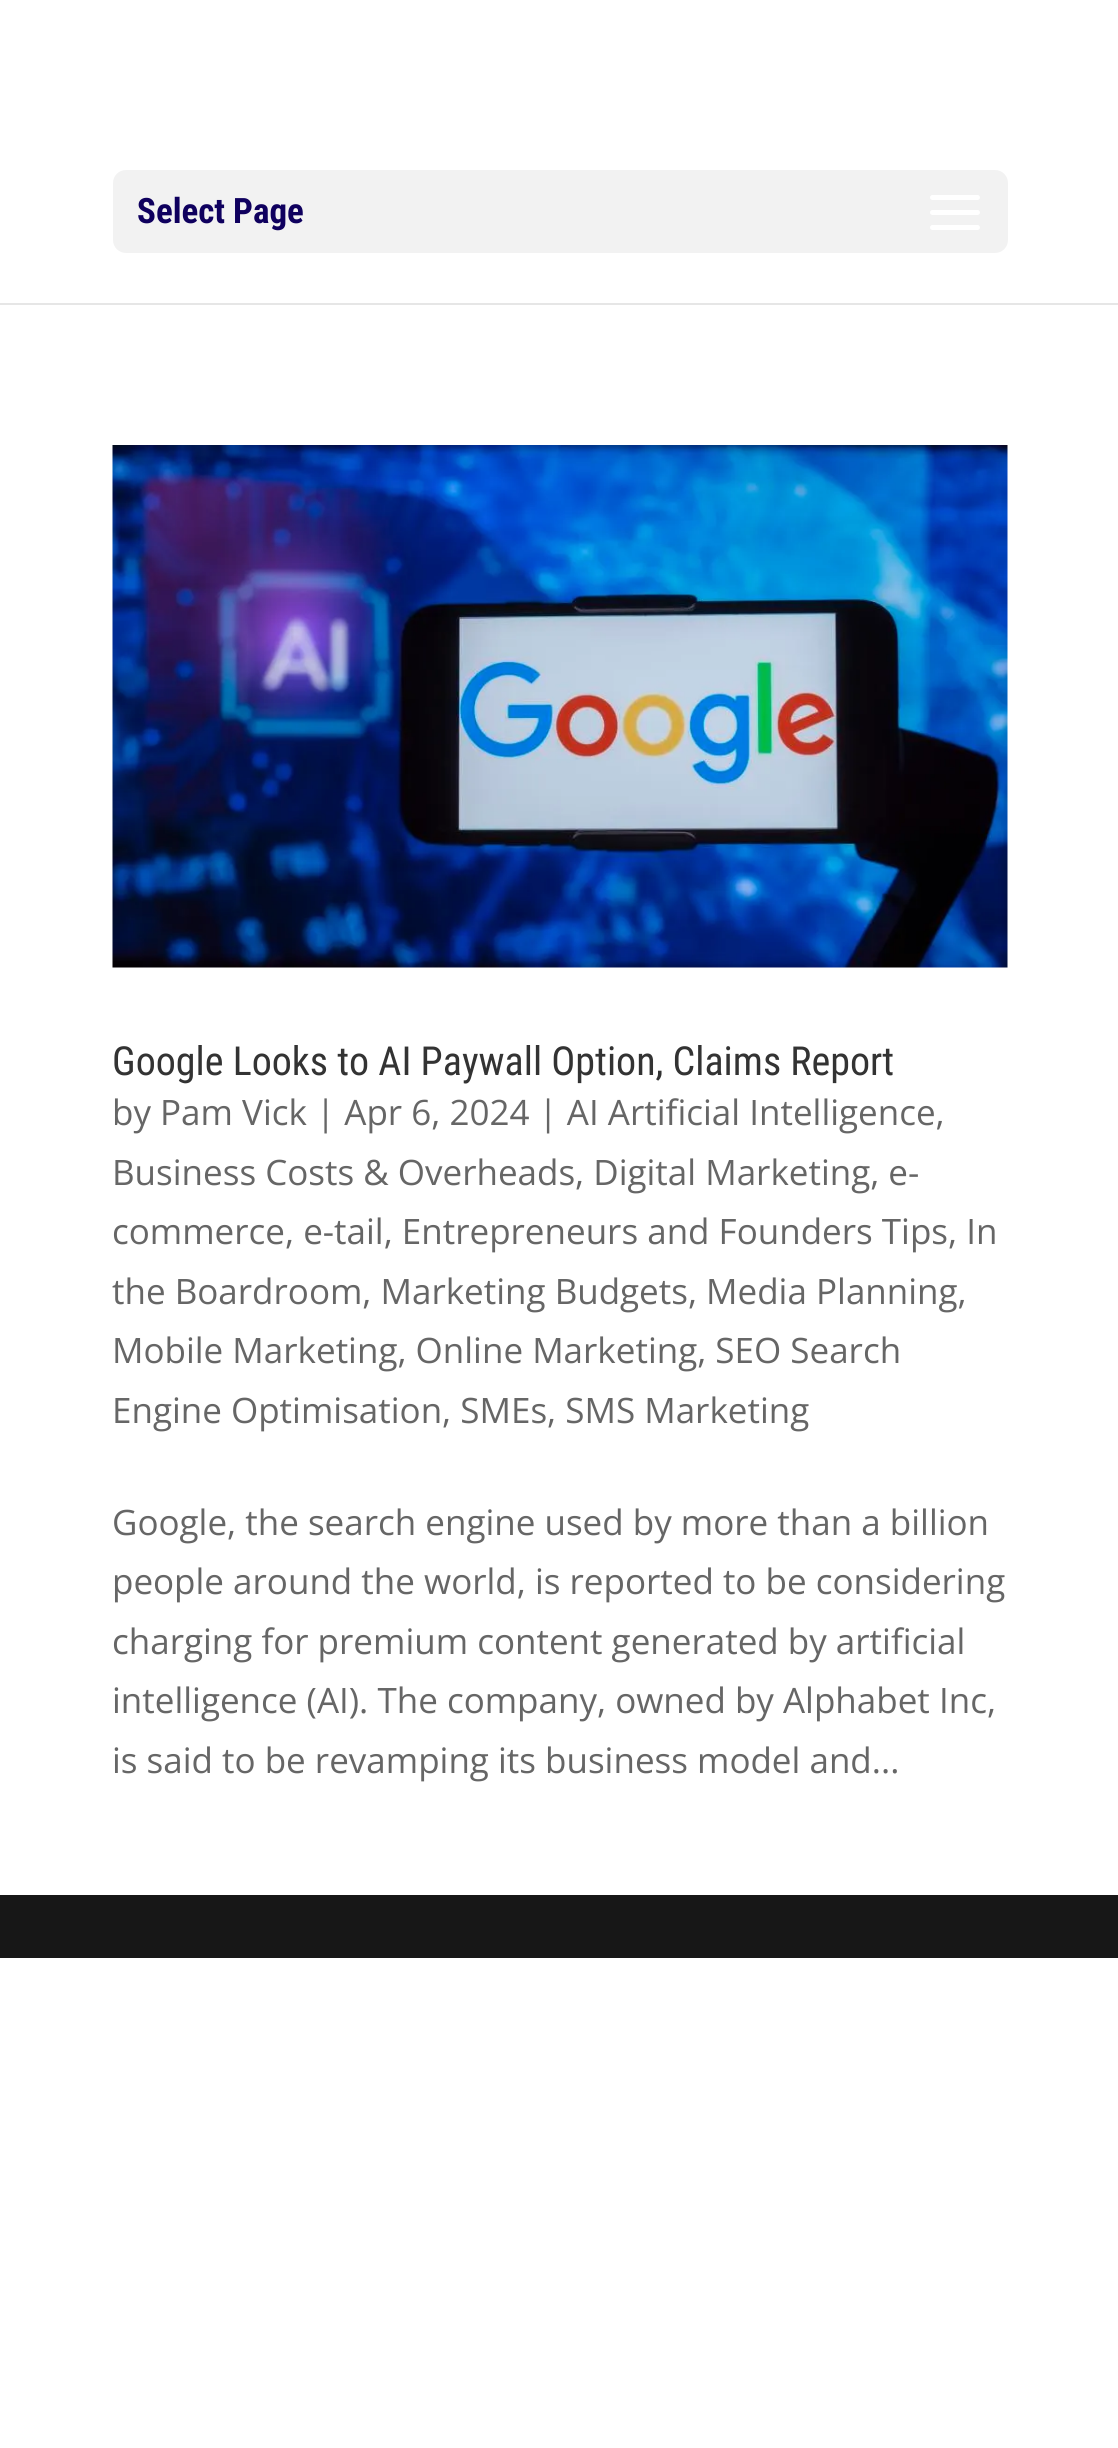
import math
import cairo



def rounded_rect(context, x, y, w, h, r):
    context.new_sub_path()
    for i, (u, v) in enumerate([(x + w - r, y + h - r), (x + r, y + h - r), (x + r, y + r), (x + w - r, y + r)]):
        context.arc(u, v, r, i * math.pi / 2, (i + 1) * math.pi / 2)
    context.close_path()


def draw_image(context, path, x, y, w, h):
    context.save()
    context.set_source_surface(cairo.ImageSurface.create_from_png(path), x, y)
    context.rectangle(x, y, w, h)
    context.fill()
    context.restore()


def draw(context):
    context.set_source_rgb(1, 1, 1)
    context.paint()
    context.set_source_rgb(230 / 255, 230 / 255, 230 / 255)
    context.rectangle(0, 303, 1118, 2)
    context.fill()
    context.set_source_rgb(242 / 255, 242 / 255, 242 / 255)
    rounded_rect(context, 113, 170, 895, 83, 13)
    context.fill()
    draw_image(context, "images/1.png", 930, 195, 50, 35)
    draw_image(context, "images/2.png", 112, 445, 896, 523)
    context.set_source_rgb(23 / 255, 23 / 255, 23 / 255)
    context.rectangle(0, 1895, 1118, 63)
    context.fill()
    context.select_font_face("Roboto Condensed", cairo.FontSlant.NORMAL, cairo.FontWeight.BOLD)
    context.set_font_size(35)
    context.set_source_rgb(15 / 255, 0, 94 / 255)
    context.move_to(137, 223)
    context.show_text("Select Page")
    context.select_font_face("Roboto Condensed")
    context.set_font_size(40)
    context.set_source_rgb(51 / 255, 51 / 255, 51 / 255)
    context.move_to(112, 1075)
    context.show_text("Google Looks to AI Paywall Option, Claims Report")
    context.select_font_face("Open Sans")
    context.set_font_size(35)
    context.set_source_rgb(102 / 255, 102 / 255, 102 / 255)
    context.move_to(112, 1125)
    context.show_text("by Pam Vick | Apr 6, 2024 | AI Artificial Intelligence,")
    context.move_to(112, 1185)
    context.show_text("Business Costs & Overheads, Digital Marketing, e-")
    context.move_to(112, 1244)
    context.show_text("commerce, e-tail, Entrepreneurs and Founders Tips, In")
    context.move_to(112, 1304)
    context.show_text("the Boardroom, Marketing Budgets, Media Planning,")
    context.move_to(112, 1363)
    context.show_text("Mobile Marketing, Online Marketing, SEO Search")
    context.move_to(112, 1423)
    context.show_text("Engine Optimisation, SMEs, SMS Marketing")
    context.move_to(112, 1535)
    context.show_text("Google, the search engine used by more than a billion")
    context.move_to(112, 1594)
    context.show_text("people around the world, is reported to be considering")
    context.move_to(112, 1654)
    context.show_text("charging for premium content generated by artificial")
    context.move_to(112, 1713)
    context.show_text("intelligence (AI). The company, owned by Alphabet Inc,")
    context.move_to(112, 1773)
    context.show_text("is said to be revamping its business model and...")


surface = cairo.ImageSurface(cairo.Format.RGB24, 1118, 2448)
context = cairo.Context(surface)
options = cairo.FontOptions()
options.set_hint_metrics(cairo.HintMetrics.OFF)
options.set_hint_style(cairo.HintStyle.NONE)
context.set_font_options(options)
context.set_miter_limit(4)
draw(context)
surface.write_to_png("out.png")
